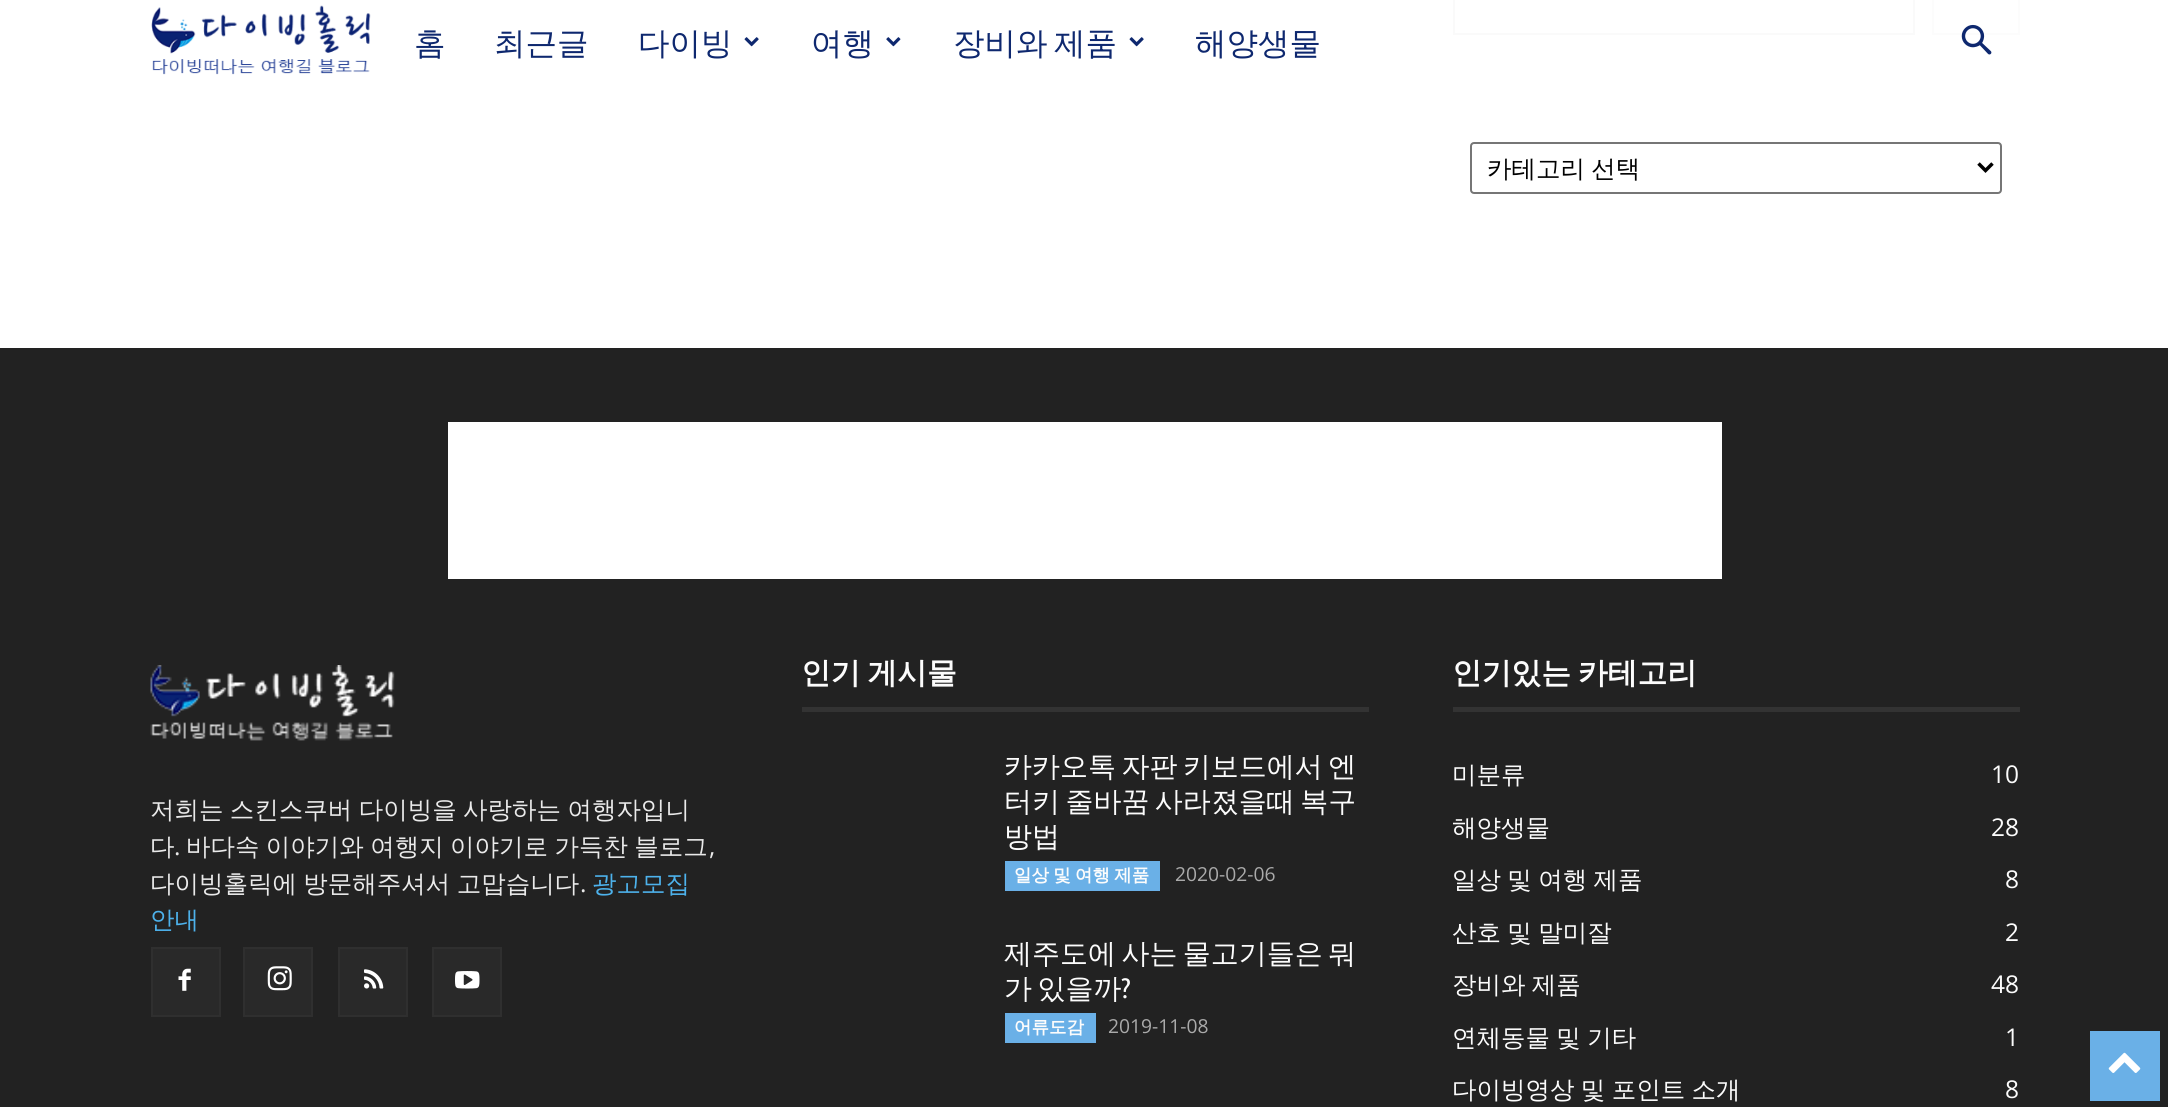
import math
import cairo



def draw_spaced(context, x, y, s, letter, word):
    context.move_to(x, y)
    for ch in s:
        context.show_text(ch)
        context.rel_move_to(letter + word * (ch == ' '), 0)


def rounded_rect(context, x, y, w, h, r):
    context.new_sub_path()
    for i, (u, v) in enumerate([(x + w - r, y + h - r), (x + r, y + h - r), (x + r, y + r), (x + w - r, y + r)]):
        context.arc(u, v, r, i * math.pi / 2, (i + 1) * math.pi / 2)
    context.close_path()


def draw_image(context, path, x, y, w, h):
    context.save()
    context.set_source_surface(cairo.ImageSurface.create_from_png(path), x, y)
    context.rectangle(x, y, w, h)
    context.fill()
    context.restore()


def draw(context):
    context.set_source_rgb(1, 1, 1)
    context.paint()
    draw_image(context, "images/1.png", 151, 5, 220, 70)
    draw_image(context, "images/2.png", 744, 37, 15, 10)
    draw_image(context, "images/3.png", 886, 37, 15, 10)
    draw_image(context, "images/2.png", 1129, 37, 15, 10)
    context.rectangle(1933, -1, 86, 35)
    context.set_source_rgb(252 / 255, 252 / 255, 252 / 255)
    context.stroke()
    draw_image(context, "images/4.png", 1961, 24, 31, 31)
    context.rectangle(1454, -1, 460, 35)
    context.set_source_rgb(250 / 255, 250 / 255, 250 / 255)
    context.stroke()
    rounded_rect(context, 1471, 143, 530, 50, 3)
    context.set_source_rgb(118 / 255, 118 / 255, 118 / 255)
    context.stroke()
    context.new_path()
    context.move_to(1978.5, 163.5)
    context.line_to(1985.5, 170.5)
    context.line_to(1992.5, 163.5)
    context.set_source_rgb(0, 0, 0)
    context.set_line_width(3.5)
    context.stroke()
    context.set_source_rgb(34 / 255, 34 / 255, 34 / 255)
    context.rectangle(0, 348, 2168, 759)
    context.fill()
    context.set_source_rgb(1, 1, 1)
    context.rectangle(448, 422, 1274, 157)
    context.fill()
    draw_image(context, "images/5.png", 150, 665, 245, 76)
    context.set_source_rgb(41 / 255, 41 / 255, 41 / 255)
    context.rectangle(153, 949, 66, 66)
    context.fill()
    draw_image(context, "images/6.png", 178, 968, 13, 23)
    context.rectangle(152, 948, 68, 68)
    context.set_source_rgb(47 / 255, 47 / 255, 47 / 255)
    context.set_line_width(2)
    context.stroke()
    context.set_source_rgb(41 / 255, 41 / 255, 41 / 255)
    context.rectangle(245, 949, 66, 66)
    context.fill()
    draw_image(context, "images/7.png", 267, 966, 25, 25)
    context.rectangle(244, 948, 68, 68)
    context.set_source_rgb(47 / 255, 47 / 255, 47 / 255)
    context.stroke()
    context.set_source_rgb(41 / 255, 41 / 255, 41 / 255)
    context.rectangle(340, 949, 66, 66)
    context.fill()
    draw_image(context, "images/8.png", 364, 969, 20, 20)
    context.rectangle(339, 948, 68, 68)
    context.set_source_rgb(47 / 255, 47 / 255, 47 / 255)
    context.stroke()
    context.set_source_rgb(41 / 255, 41 / 255, 41 / 255)
    context.rectangle(434, 949, 66, 66)
    context.fill()
    draw_image(context, "images/9.png", 455, 971, 25, 18)
    context.rectangle(433, 948, 68, 68)
    context.set_source_rgb(47 / 255, 47 / 255, 47 / 255)
    context.stroke()
    context.set_source_rgb(51 / 255, 51 / 255, 51 / 255)
    context.rectangle(802, 707, 567, 5)
    context.fill()
    context.set_source_rgb(106 / 255, 176 / 255, 231 / 255)
    context.rectangle(1005, 861, 155, 30)
    context.fill()
    context.rectangle(1005, 1013, 91, 30)
    context.fill()
    context.set_source_rgb(51 / 255, 51 / 255, 51 / 255)
    context.rectangle(1453, 707, 567, 5)
    context.fill()
    context.set_source_rgb(106 / 255, 176 / 255, 231 / 255)
    context.rectangle(2090, 1031, 70, 70)
    context.fill()
    draw_image(context, "images/10.png", 2108, 1052, 33, 21)
    context.select_font_face("WenQuanYi Zen Hei Medium")
    context.set_font_size(31.5)
    context.set_source_rgb(14 / 255, 40 / 255, 111 / 255)
    context.move_to(414, 54)
    context.show_text("홈")
    context.move_to(494, 54)
    context.show_text("최근글")
    context.move_to(638, 54)
    context.show_text("다이빙")
    context.move_to(811, 54)
    context.show_text("여행")
    draw_spaced(context, 953, 54, "장비와 제품", 0, -3)
    context.move_to(1195, 54)
    context.show_text("해양생물")
    context.set_font_size(24.5)
    context.set_source_rgb(0, 0, 0)
    draw_spaced(context, 1487, 177, "카테고리 선택", 0, -1)
    context.set_source_rgb(234 / 255, 234 / 255, 234 / 255)
    draw_spaced(context, 150, 818, "저희는 스킨스쿠버 다이빙을 사랑하는 여행자입니", 0, -1)
    context.move_to(150, 855)
    context.show_text("다")
    context.select_font_face("Open Sans")
    context.move_to(174, 855)
    context.show_text(".")
    context.select_font_face("WenQuanYi Zen Hei Medium")
    draw_spaced(context, 186, 855, "바다속 이야기와 여행지 이야기로 가득찬 블로그", 0, -1)
    context.select_font_face("Open Sans")
    context.move_to(709, 855)
    context.show_text(",")
    context.select_font_face("WenQuanYi Zen Hei Medium")
    draw_spaced(context, 150, 892, "다이빙홀릭에 방문해주셔서 고맙습니다", 0, -1)
    context.select_font_face("Open Sans")
    context.move_to(580, 892)
    context.show_text(".")
    context.select_font_face("WenQuanYi Zen Hei Medium")
    context.set_source_rgb(77 / 255, 178 / 255, 236 / 255)
    context.move_to(592, 892)
    context.show_text("광고모집")
    context.move_to(150, 928)
    context.show_text("안내")
    context.select_font_face("WenQuanYi Zen Hei", cairo.FontSlant.NORMAL, cairo.FontWeight.BOLD)
    context.set_font_size(29.75)
    context.set_source_rgb(252 / 255, 252 / 255, 252 / 255)
    draw_spaced(context, 801, 683, "인기 게시물", 0, -2)
    context.select_font_face("WenQuanYi Zen Hei Medium")
    context.set_font_size(28)
    draw_spaced(context, 1004, 776, "카카오톡 자판 키보드에서 엔", 0, -3)
    draw_spaced(context, 1004, 811, "터키 줄바꿈 사라졌을때 복구", 0, -3)
    context.move_to(1004, 846)
    context.show_text("방법")
    context.select_font_face("WenQuanYi Zen Hei", cairo.FontSlant.NORMAL, cairo.FontWeight.BOLD)
    context.set_font_size(17.5)
    draw_spaced(context, 1014, 881, "일상 및 여행 제품", 0, -1)
    context.select_font_face("Open Sans")
    context.set_font_size(19.25)
    context.set_source_rgb(170 / 255, 170 / 255, 170 / 255)
    context.move_to(1175, 881)
    context.show_text("2020-02-06")
    context.select_font_face("WenQuanYi Zen Hei Medium")
    context.set_font_size(28)
    context.set_source_rgb(252 / 255, 252 / 255, 252 / 255)
    draw_spaced(context, 1004, 963, "제주도에 사는 물고기들은 뭐", 0, -3)
    draw_spaced(context, 1004, 998, "가 있을까", 0, -3)
    context.select_font_face("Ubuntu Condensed")
    context.move_to(1121, 998)
    context.show_text("?")
    context.select_font_face("WenQuanYi Zen Hei", cairo.FontSlant.NORMAL, cairo.FontWeight.BOLD)
    context.set_font_size(17.5)
    context.move_to(1014, 1033)
    context.show_text("어류도감")
    context.select_font_face("Open Sans")
    context.set_font_size(19.25)
    context.set_source_rgb(170 / 255, 170 / 255, 170 / 255)
    context.move_to(1108, 1033)
    context.show_text("2019-11-08")
    context.select_font_face("WenQuanYi Zen Hei", cairo.FontSlant.NORMAL, cairo.FontWeight.BOLD)
    context.set_font_size(29.75)
    context.set_source_rgb(252 / 255, 252 / 255, 252 / 255)
    draw_spaced(context, 1452, 683, "인기있는 카테고리", 0, -2)
    context.select_font_face("WenQuanYi Zen Hei Medium")
    context.set_font_size(24.5)
    context.move_to(1452, 783)
    context.show_text("미분류")
    context.select_font_face("Open Sans")
    context.move_to(1991, 783)
    context.show_text("10")
    context.save()
    context.rectangle(1453, 660, 567, 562)
    context.clip()
    context.select_font_face("WenQuanYi Zen Hei Medium")
    context.move_to(1452, 836)
    context.show_text("해양생물")
    context.restore()
    context.move_to(1991, 836)
    context.show_text("28")
    context.select_font_face("WenQuanYi Zen Hei Medium")
    draw_spaced(context, 1452, 888, "일상 및 여행 제품", 0, -1)
    context.select_font_face("Open Sans")
    context.move_to(2005, 888)
    context.show_text("8")
    context.select_font_face("WenQuanYi Zen Hei Medium")
    draw_spaced(context, 1452, 941, "산호 및 말미잘", 0, -1)
    context.select_font_face("Open Sans")
    context.move_to(2005, 941)
    context.show_text("2")
    context.select_font_face("WenQuanYi Zen Hei Medium")
    draw_spaced(context, 1452, 993, "장비와 제품", 0, -1)
    context.select_font_face("Open Sans")
    context.move_to(1991, 993)
    context.show_text("48")
    context.select_font_face("WenQuanYi Zen Hei Medium")
    draw_spaced(context, 1452, 1046, "연체동물 및 기타", 0, -1)
    context.select_font_face("Open Sans")
    context.move_to(2005, 1046)
    context.show_text("1")
    context.select_font_face("WenQuanYi Zen Hei Medium")
    draw_spaced(context, 1452, 1098, "다이빙영상 및 포인트 소개", 0, -1)
    context.select_font_face("Open Sans")
    context.move_to(2005, 1098)
    context.show_text("8")


surface = cairo.ImageSurface(cairo.Format.RGB24, 2168, 1107)
context = cairo.Context(surface)
options = cairo.FontOptions()
options.set_hint_metrics(cairo.HintMetrics.OFF)
options.set_hint_style(cairo.HintStyle.NONE)
context.set_font_options(options)
context.set_miter_limit(4)
draw(context)
surface.write_to_png("out.png")
